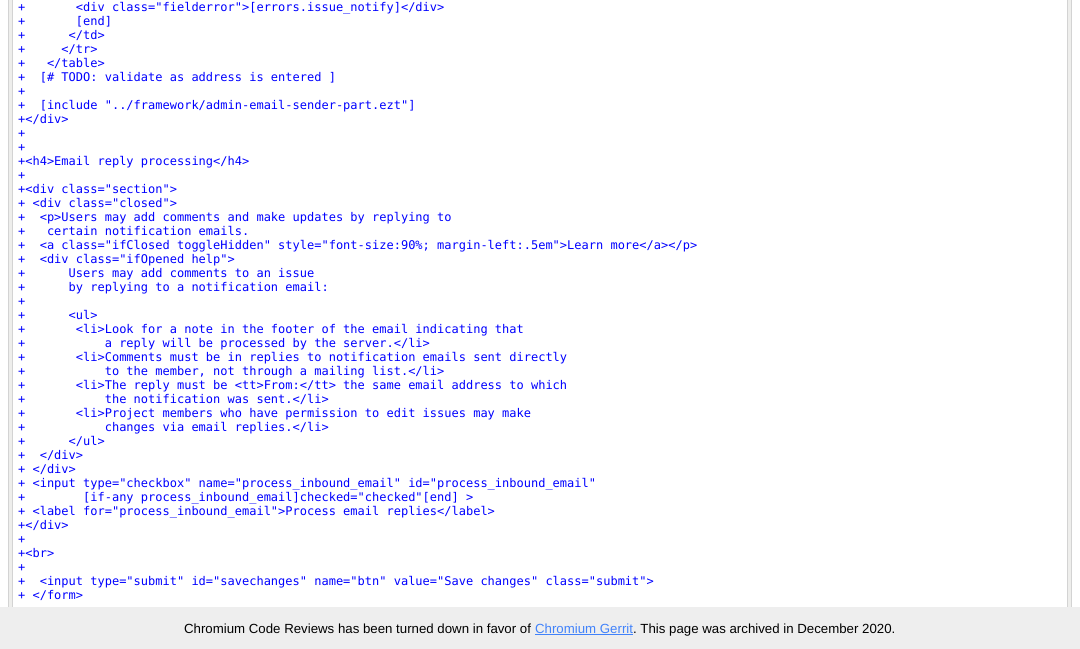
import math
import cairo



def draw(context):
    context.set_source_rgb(1, 1, 1)
    context.paint()
    context.set_source_rgb(238 / 255, 238 / 255, 236 / 255)
    context.rectangle(9, 0, 1062, 607)
    context.fill()
    context.rectangle(8.5, -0.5, 1063, 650)
    context.set_source_rgb(211 / 255, 211 / 255, 211 / 255)
    context.set_line_width(1)
    context.stroke()
    context.set_source_rgb(1, 1, 1)
    context.rectangle(13, 0, 1054, 607)
    context.fill()
    context.rectangle(12.5, -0.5, 1055, 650)
    context.set_source_rgb(211 / 255, 211 / 255, 211 / 255)
    context.stroke()
    context.set_source_rgb(238 / 255, 238 / 255, 238 / 255)
    context.rectangle(0, 607, 1080, 42)
    context.fill()
    context.set_source_rgb(65 / 255, 130 / 255, 250 / 255)
    context.rectangle(535, 634, 98, 1)
    context.fill()
    context.select_font_face("DejaVu Sans Mono")
    context.set_font_size(12)
    context.set_source_rgb(0, 0, 1)
    context.move_to(18, 11)
    context.show_text("+       <div class=\"fielderror\">[errors.issue_notify]</div>")
    context.move_to(18, 25)
    context.show_text("+       [end]")
    context.move_to(18, 39)
    context.show_text("+      </td>")
    context.move_to(18, 53)
    context.show_text("+     </tr>")
    context.move_to(18, 67)
    context.show_text("+   </table>")
    context.move_to(18, 81)
    context.show_text("+  [# TODO: validate as address is entered ]")
    context.move_to(18, 95)
    context.show_text("+")
    context.move_to(18, 109)
    context.show_text("+  [include \"../framework/admin-email-sender-part.ezt\"]")
    context.move_to(18, 123)
    context.show_text("+</div>")
    context.move_to(18, 137)
    context.show_text("+")
    context.move_to(18, 151)
    context.show_text("+")
    context.move_to(18, 165)
    context.show_text("+<h4>Email reply processing</h4>")
    context.move_to(18, 179)
    context.show_text("+")
    context.move_to(18, 193)
    context.show_text("+<div class=\"section\">")
    context.move_to(18, 207)
    context.show_text("+ <div class=\"closed\">")
    context.move_to(18, 221)
    context.show_text("+  <p>Users may add comments and make updates by replying to")
    context.move_to(18, 235)
    context.show_text("+   certain notification emails.")
    context.move_to(18, 249)
    context.show_text("+  <a class=\"ifClosed toggleHidden\" style=\"font-size:90%; margin-left:.5em\">Learn more</a></p>")
    context.move_to(18, 263)
    context.show_text("+  <div class=\"ifOpened help\">")
    context.move_to(18, 277)
    context.show_text("+      Users may add comments to an issue")
    context.move_to(18, 291)
    context.show_text("+      by replying to a notification email:")
    context.move_to(18, 305)
    context.show_text("+")
    context.move_to(18, 319)
    context.show_text("+      <ul>")
    context.move_to(18, 333)
    context.show_text("+       <li>Look for a note in the footer of the email indicating that")
    context.move_to(18, 347)
    context.show_text("+           a reply will be processed by the server.</li>")
    context.move_to(18, 361)
    context.show_text("+       <li>Comments must be in replies to notification emails sent directly")
    context.move_to(18, 375)
    context.show_text("+           to the member, not through a mailing list.</li>")
    context.move_to(18, 389)
    context.show_text("+       <li>The reply must be <tt>From:</tt> the same email address to which")
    context.move_to(18, 403)
    context.show_text("+           the notification was sent.</li>")
    context.move_to(18, 417)
    context.show_text("+       <li>Project members who have permission to edit issues may make")
    context.move_to(18, 431)
    context.show_text("+           changes via email replies.</li>")
    context.move_to(18, 445)
    context.show_text("+      </ul>")
    context.move_to(18, 459)
    context.show_text("+  </div>")
    context.move_to(18, 473)
    context.show_text("+ </div>")
    context.move_to(18, 487)
    context.show_text("+ <input type=\"checkbox\" name=\"process_inbound_email\" id=\"process_inbound_email\"")
    context.move_to(18, 501)
    context.show_text("+        [if-any process_inbound_email]checked=\"checked\"[end] >")
    context.move_to(18, 515)
    context.show_text("+ <label for=\"process_inbound_email\">Process email replies</label>")
    context.move_to(18, 529)
    context.show_text("+</div>")
    context.move_to(18, 543)
    context.show_text("+")
    context.move_to(18, 557)
    context.show_text("+<br>")
    context.move_to(18, 571)
    context.show_text("+")
    context.move_to(18, 585)
    context.show_text("+  <input type=\"submit\" id=\"savechanges\" name=\"btn\" value=\"Save changes\" class=\"submit\">")
    context.move_to(18, 599)
    context.show_text("+ </form>")
    context.select_font_face("Liberation Sans")
    context.set_font_size(13.25)
    context.set_source_rgb(0, 0, 0)
    context.move_to(184, 633)
    context.show_text("Chromium Code Reviews has been turned down in favor of")
    context.set_source_rgb(65 / 255, 130 / 255, 250 / 255)
    context.move_to(535, 633)
    context.show_text("Chromium Gerrit")
    context.set_source_rgb(0, 0, 0)
    context.move_to(633, 633)
    context.show_text(". This page was archived in December 2020.")


surface = cairo.ImageSurface(cairo.Format.RGB24, 1080, 649)
context = cairo.Context(surface)
options = cairo.FontOptions()
options.set_hint_metrics(cairo.HintMetrics.OFF)
options.set_hint_style(cairo.HintStyle.NONE)
context.set_font_options(options)
context.set_miter_limit(4)
draw(context)
surface.write_to_png("out.png")
